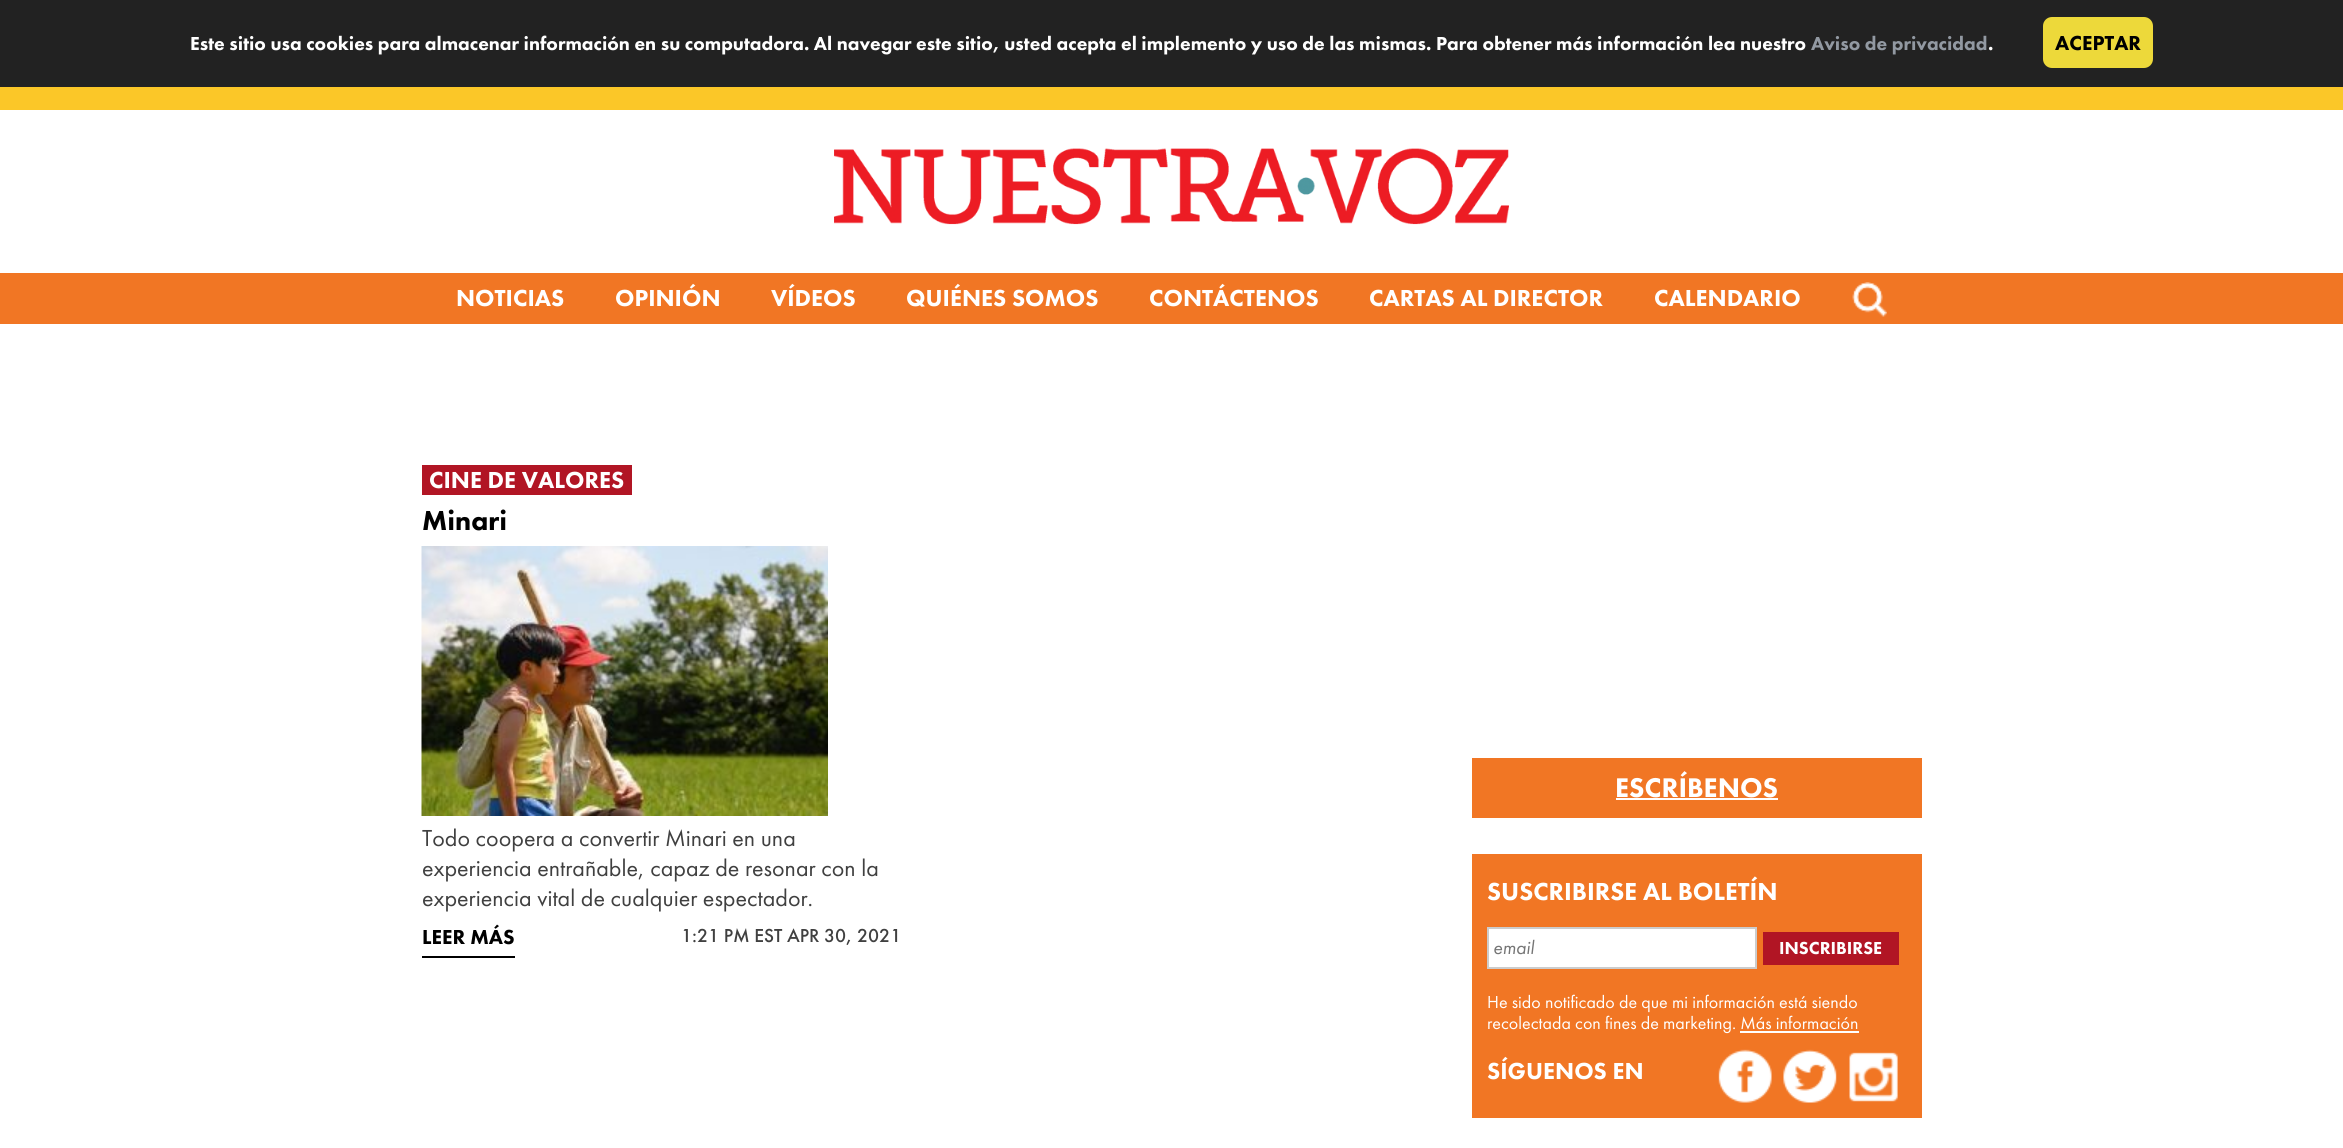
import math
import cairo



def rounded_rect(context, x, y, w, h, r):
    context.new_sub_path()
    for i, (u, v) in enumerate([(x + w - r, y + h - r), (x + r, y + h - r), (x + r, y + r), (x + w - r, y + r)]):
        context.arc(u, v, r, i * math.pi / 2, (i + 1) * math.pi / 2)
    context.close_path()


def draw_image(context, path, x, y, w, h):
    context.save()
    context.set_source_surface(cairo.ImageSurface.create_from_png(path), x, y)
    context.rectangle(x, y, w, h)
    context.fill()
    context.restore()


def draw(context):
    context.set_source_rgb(1, 1, 1)
    context.paint()
    context.set_source_rgb(34 / 255, 34 / 255, 34 / 255)
    context.rectangle(0, 0, 2343, 87)
    context.fill()
    context.set_source_rgb(237 / 255, 217 / 255, 58 / 255)
    rounded_rect(context, 2043, 17, 110, 51, 9)
    context.fill()
    context.set_source_rgb(251 / 255, 199 / 255, 40 / 255)
    context.rectangle(0, 87, 2343, 23)
    context.fill()
    draw_image(context, "images/1.png", 834, 148, 675, 77)
    context.set_source_rgb(241 / 255, 118 / 255, 36 / 255)
    context.rectangle(0, 273, 2343, 51)
    context.fill()
    draw_image(context, "images/2.png", 1852, 282, 35, 35)
    context.set_source_rgb(177 / 255, 21 / 255, 36 / 255)
    context.rectangle(422, 465, 210, 30)
    context.fill()
    draw_image(context, "images/3.png", 421, 546, 407, 270)
    context.set_source_rgb(0, 0, 0)
    context.rectangle(422, 956, 93, 2)
    context.fill()
    context.set_source_rgb(241 / 255, 118 / 255, 36 / 255)
    context.rectangle(1472, 758, 450, 60)
    context.fill()
    context.set_source_rgb(1, 1, 1)
    context.rectangle(1616, 798, 162, 2)
    context.fill()
    context.set_source_rgb(241 / 255, 118 / 255, 36 / 255)
    context.rectangle(1472, 854, 450, 264)
    context.fill()
    context.set_source_rgb(1, 1, 1)
    context.rectangle(1488, 928, 268, 40)
    context.fill_preserve()
    context.set_source_rgb(204 / 255, 204 / 255, 204 / 255)
    context.stroke()
    context.set_source_rgb(177 / 255, 21 / 255, 36 / 255)
    context.rectangle(1763, 932, 136, 33)
    context.fill()
    context.set_source_rgb(1, 1, 1)
    context.rectangle(1740, 1031, 119, 2)
    context.fill()
    draw_image(context, "images/4.png", 1718, 1049, 54, 54)
    draw_image(context, "images/5.png", 1783, 1049, 54, 54)
    draw_image(context, "images/6.png", 1849, 1052, 49, 50)
    context.select_font_face("Futura PT Black")
    context.set_font_size(19.5)
    context.move_to(190, 50)
    context.show_text("Este sitio usa cookies para almacenar información en su computadora. Al navegar este sitio, usted acepta el implemento y uso de las mismas. Para obtener más información lea nuestro")
    context.set_source_rgb(146 / 255, 153 / 255, 162 / 255)
    context.move_to(1811, 50)
    context.show_text("Aviso de privacidad")
    context.set_source_rgb(1, 1, 1)
    context.move_to(1988, 50)
    context.show_text(".")
    context.set_font_size(21)
    context.set_source_rgb(0, 0, 0)
    context.move_to(2055, 50)
    context.show_text("ACEPTAR")
    context.set_font_size(24)
    context.set_source_rgb(1, 1, 1)
    context.move_to(456, 306)
    context.show_text("NOTICIAS")
    context.move_to(615, 306)
    context.show_text("OPINIÓN")
    context.move_to(771, 306)
    context.show_text("VÍDEOS")
    context.move_to(906, 306)
    context.show_text("QUIÉNES SOMOS")
    context.move_to(1149, 306)
    context.show_text("CONTÁCTENOS")
    context.move_to(1369, 306)
    context.show_text("CARTAS AL DIRECTOR")
    context.move_to(1654, 306)
    context.show_text("CALENDARIO")
    context.move_to(429, 488)
    context.show_text("CINE DE VALORES")
    context.set_font_size(28.5)
    context.set_source_rgb(0, 0, 0)
    context.move_to(422, 530)
    context.show_text("Minari")
    context.select_font_face("Futura PT")
    context.set_font_size(24)
    context.set_source_rgb(64 / 255, 64 / 255, 64 / 255)
    context.move_to(422, 846)
    context.show_text("Todo coopera a convertir Minari en una")
    context.move_to(422, 876)
    context.show_text("experiencia entrañable, capaz de resonar con la")
    context.move_to(422, 906)
    context.show_text("experiencia vital de cualquier espectador.")
    context.select_font_face("Futura PT Black")
    context.set_font_size(21)
    context.set_source_rgb(0, 0, 0)
    context.move_to(422, 944)
    context.show_text("LEER MÁS")
    context.select_font_face("Futura PT Medium")
    context.set_font_size(19.5)
    context.set_source_rgb(64 / 255, 64 / 255, 64 / 255)
    context.move_to(681, 942)
    context.show_text("1:21 PM EST APR 30, 2021")
    context.select_font_face("Futura PT Black")
    context.set_font_size(28)
    context.set_source_rgb(1, 1, 1)
    context.move_to(1615, 797)
    context.show_text("ESCRÍBENOS")
    context.set_font_size(25.5)
    context.move_to(1487, 900)
    context.show_text("SUSCRIBIRSE AL BOLETÍN")
    context.select_font_face("Futura PT", cairo.FontSlant.ITALIC)
    context.set_font_size(19.5)
    context.set_source_rgb(117 / 255, 117 / 255, 117 / 255)
    context.move_to(1493, 954)
    context.show_text("email")
    context.select_font_face("Futura PT Black")
    context.set_font_size(18)
    context.set_source_rgb(1, 1, 1)
    context.move_to(1779, 954)
    context.show_text("INSCRIBIRSE")
    context.select_font_face("Futura PT")
    context.move_to(1487, 1008)
    context.show_text("He sido notificado de que mi información está siendo")
    context.move_to(1487, 1029)
    context.show_text("recolectada con fines de marketing. Más información")
    context.select_font_face("Futura PT Black")
    context.set_font_size(24)
    context.move_to(1487, 1079)
    context.show_text("SÍGUENOS EN")


surface = cairo.ImageSurface(cairo.Format.RGB24, 2343, 1148)
context = cairo.Context(surface)
options = cairo.FontOptions()
options.set_hint_metrics(cairo.HintMetrics.OFF)
options.set_hint_style(cairo.HintStyle.NONE)
context.set_font_options(options)
context.set_miter_limit(4)
draw(context)
surface.write_to_png("out.png")
